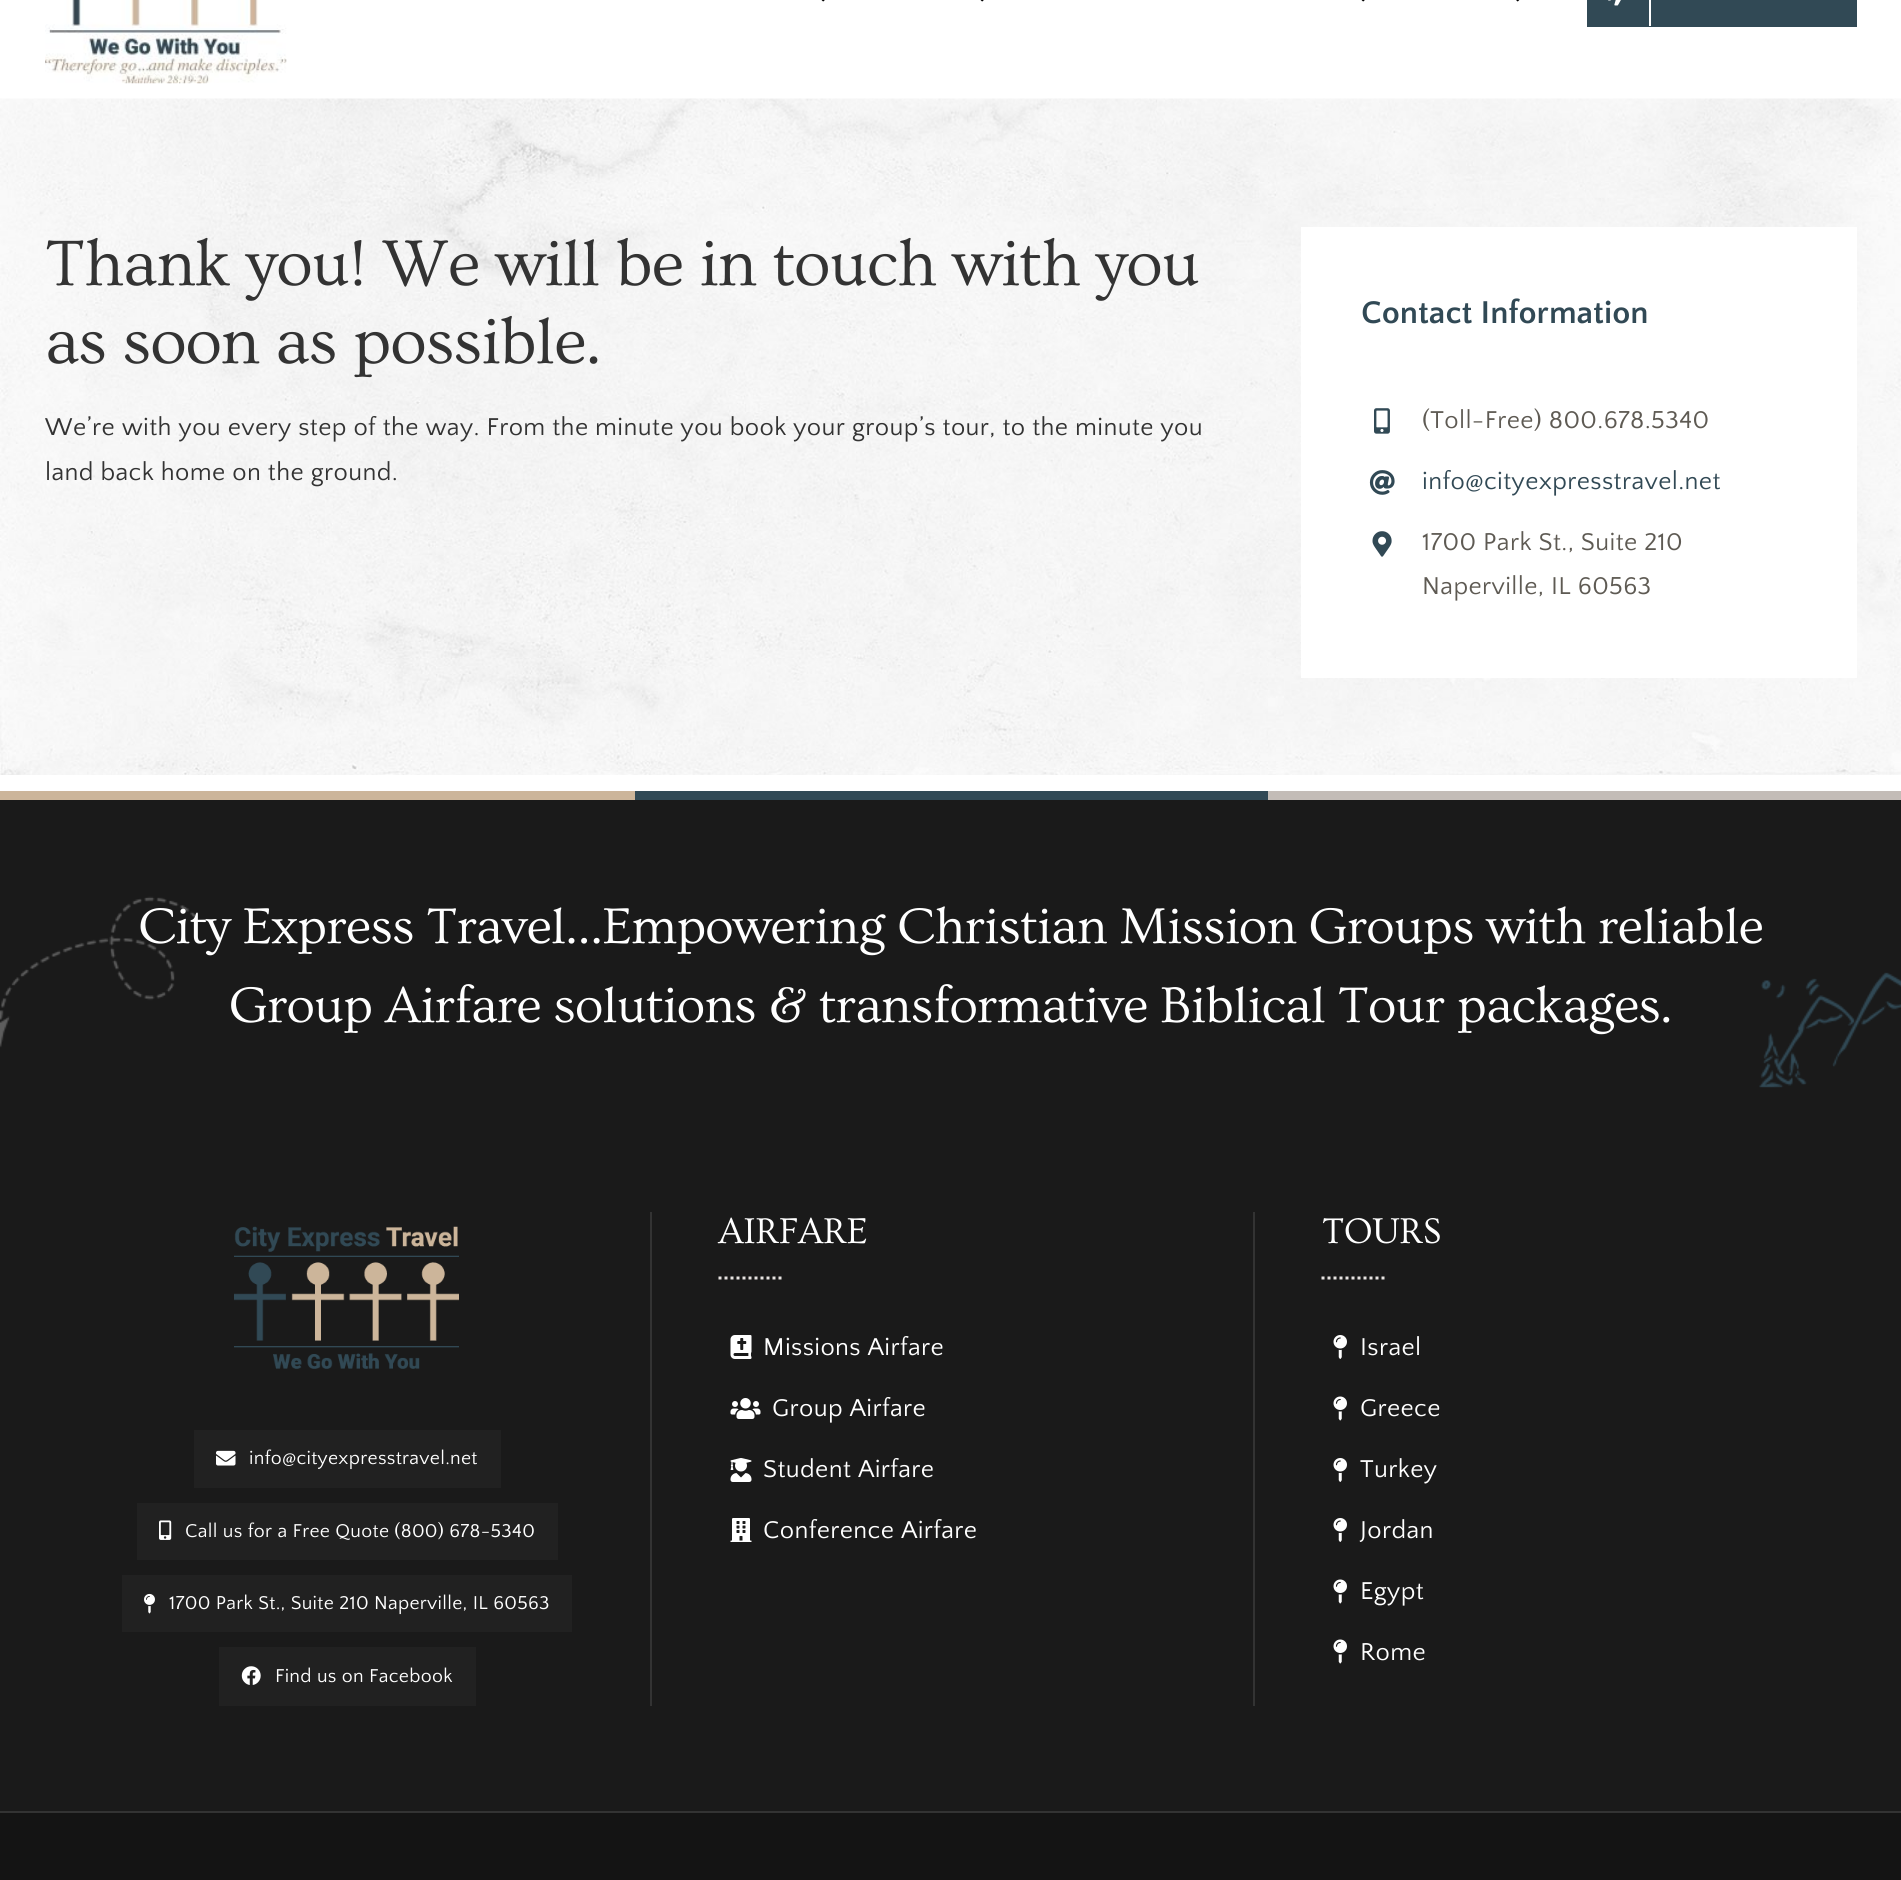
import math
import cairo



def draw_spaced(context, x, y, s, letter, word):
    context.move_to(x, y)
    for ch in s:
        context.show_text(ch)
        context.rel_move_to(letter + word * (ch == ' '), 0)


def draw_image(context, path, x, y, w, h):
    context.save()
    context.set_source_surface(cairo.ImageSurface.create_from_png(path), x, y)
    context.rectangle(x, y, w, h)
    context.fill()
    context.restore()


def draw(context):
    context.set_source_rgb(1, 1, 1)
    context.paint()
    draw_image(context, "images/1.png", 45, 0, 242, 84)
    draw_image(context, "images/2.png", 821, 0, 4, 2)
    draw_image(context, "images/2.png", 980, 0, 4, 2)
    draw_image(context, "images/2.png", 1361, 0, 4, 2)
    draw_image(context, "images/3.png", 1516, 0, 4, 2)
    context.set_source_rgb(49 / 255, 73 / 255, 85 / 255)
    context.rectangle(1587, 0, 270, 27)
    context.fill()
    context.set_source_rgb(1, 1, 1)
    context.rectangle(1649, 0, 2, 26)
    context.fill()
    draw_image(context, "images/4.png", 1608, 0, 13, 6)
    draw_image(context, "images/5.png", 0, 98, 1901, 677)
    context.rectangle(1301, 227, 556, 451)
    context.fill()
    draw_image(context, "images/6.png", 1374, 408, 16, 26)
    draw_image(context, "images/7.png", 1369, 470, 26, 25)
    draw_image(context, "images/8.png", 1372, 531, 20, 26)
    context.set_source_rgb(204 / 255, 181 / 255, 154 / 255)
    context.rectangle(0, 791, 635, 9)
    context.fill()
    context.set_source_rgb(49 / 255, 73 / 255, 85 / 255)
    context.rectangle(635, 791, 633, 9)
    context.fill()
    context.set_source_rgb(195 / 255, 188 / 255, 183 / 255)
    context.rectangle(1268, 791, 633, 9)
    context.fill()
    context.set_source_rgb(26 / 255, 26 / 255, 26 / 255)
    context.rectangle(0, 800, 1901, 1011)
    context.fill()
    draw_image(context, "images/9.png", 0, 896, 1901, 192)
    draw_image(context, "images/10.png", 234, 1226, 225, 143)
    context.set_source_rgb(33 / 255, 33 / 255, 33 / 255)
    context.rectangle(194, 1430, 307, 58)
    context.fill()
    draw_image(context, "images/11.png", 216, 1450, 20, 16)
    context.rectangle(137, 1503, 421, 57)
    context.fill()
    draw_image(context, "images/12.png", 159, 1520, 13, 20)
    context.rectangle(122, 1575, 450, 57)
    context.fill()
    draw_image(context, "images/13.png", 144, 1593, 11, 21)
    context.rectangle(219, 1647, 257, 59)
    context.fill()
    draw_image(context, "images/14.png", 241, 1666, 20, 19)
    context.set_source_rgb(51 / 255, 51 / 255, 51 / 255)
    context.rectangle(650, 1212, 2, 494)
    context.fill()
    context.new_path()
    context.move_to(718.5, 1278)
    context.line_to(781.5, 1278)
    context.set_source_rgb(231 / 255, 228 / 255, 226 / 255)
    context.set_line_width(3)
    context.set_dash([3, 3])
    context.stroke()
    draw_image(context, "images/15.png", 730, 1335, 22, 24)
    draw_image(context, "images/16.png", 730, 1398, 31, 21)
    draw_image(context, "images/17.png", 730, 1458, 22, 24)
    draw_image(context, "images/18.png", 730, 1518, 22, 24)
    context.set_source_rgb(51 / 255, 51 / 255, 51 / 255)
    context.rectangle(1253, 1212, 2, 494)
    context.fill()
    context.new_path()
    context.move_to(1321.5, 1278)
    context.line_to(1384.5, 1278)
    context.set_source_rgb(231 / 255, 228 / 255, 226 / 255)
    context.stroke()
    draw_image(context, "images/19.png", 1333, 1335, 14, 24)
    draw_image(context, "images/20.png", 1333, 1396, 14, 25)
    draw_image(context, "images/19.png", 1333, 1458, 14, 24)
    draw_image(context, "images/19.png", 1333, 1518, 14, 24)
    draw_image(context, "images/20.png", 1333, 1579, 14, 25)
    draw_image(context, "images/20.png", 1333, 1639, 14, 25)
    context.set_source_rgb(20 / 255, 20 / 255, 20 / 255)
    context.rectangle(0, 1813, 1901, 67)
    context.fill()
    context.set_source_rgb(51 / 255, 51 / 255, 51 / 255)
    context.rectangle(0, 1811, 1901, 2)
    context.fill()
    context.select_font_face("Ovo")
    context.set_font_size(67.5)
    draw_spaced(context, 45, 285, "Thank you! We will be in touch with you", -1, 0)
    draw_spaced(context, 45, 363, "as soon as possible.", -1, 0)
    context.select_font_face("Quattrocento Sans")
    context.set_font_size(25.5)
    draw_spaced(context, 45, 435, "We’re with you every step of the way. From the minute you book your group’s tour, to the minute you", 0.38, 0)
    draw_spaced(context, 45, 480, "land back home on the ground.", 0.38, 0)
    context.select_font_face("Quattrocento Sans", cairo.FontSlant.NORMAL, cairo.FontWeight.BOLD)
    context.set_font_size(33)
    context.set_source_rgb(49 / 255, 73 / 255, 85 / 255)
    context.move_to(1361, 323)
    context.show_text("Contact Information")
    context.select_font_face("Quattrocento Sans")
    context.set_font_size(25.5)
    context.set_source_rgb(94 / 255, 90 / 255, 83 / 255)
    draw_spaced(context, 1422, 428, "(Toll-Free) 800.678.5340", 0.38, 0)
    context.set_source_rgb(49 / 255, 73 / 255, 85 / 255)
    draw_spaced(context, 1422, 489, "info@cityexpresstravel.net", 0.38, 0)
    context.set_source_rgb(94 / 255, 90 / 255, 83 / 255)
    draw_spaced(context, 1422, 550, "1700 Park St., Suite 210", 0.38, 0)
    draw_spaced(context, 1422, 594, "Naperville, IL 60563", 0.38, 0)
    context.select_font_face("Ovo")
    context.set_font_size(52.5)
    context.set_source_rgb(1, 1, 1)
    draw_spaced(context, 138, 943, "City Express Travel…Empowering Christian Mission Groups with reliable", -0.8, 0)
    draw_spaced(context, 229, 1022, "Group Airfare solutions", -0.8, 0)
    draw_spaced(context, 769, 1022, "& transformative Biblical Tour packages.", -0.8, 0)
    context.select_font_face("Quattrocento Sans")
    context.set_font_size(19.5)
    draw_spaced(context, 249, 1464, "info@cityexpresstravel.net", 0.3, 0)
    draw_spaced(context, 185, 1537, "Call us for a Free Quote (800) 678-5340", 0.3, 0)
    draw_spaced(context, 169, 1609, "1700 Park St., Suite 210 Naperville, IL 60563", 0.3, 0)
    draw_spaced(context, 275, 1682, "Find us on Facebook", 0.3, 0)
    context.select_font_face("Ovo")
    context.set_font_size(37.5)
    draw_spaced(context, 718, 1243, "AIRFARE", -0.5, 0)
    context.select_font_face("Quattrocento Sans")
    context.set_font_size(25.5)
    draw_spaced(context, 763, 1355, "Missions Airfare", 0.38, 0)
    draw_spaced(context, 772, 1416, "Group Airfare", 0.38, 0)
    draw_spaced(context, 763, 1477, "Student Airfare", 0.38, 0)
    draw_spaced(context, 763, 1538, "Conference Airfare", 0.38, 0)
    context.select_font_face("Ovo")
    context.set_font_size(37.5)
    draw_spaced(context, 1322, 1243, "TOURS", -0.5, 0)
    context.select_font_face("Quattrocento Sans")
    context.set_font_size(25.5)
    draw_spaced(context, 1360, 1355, "Israel", 0.38, 0)
    draw_spaced(context, 1360, 1416, "Greece", 0.38, 0)
    draw_spaced(context, 1360, 1477, "Turkey", 0.38, 0)
    draw_spaced(context, 1360, 1538, "Jordan", 0.38, 0)
    draw_spaced(context, 1360, 1599, "Egypt", 0.38, 0)
    draw_spaced(context, 1360, 1660, "Rome", 0.38, 0)


surface = cairo.ImageSurface(cairo.Format.RGB24, 1901, 1880)
context = cairo.Context(surface)
options = cairo.FontOptions()
options.set_hint_metrics(cairo.HintMetrics.OFF)
options.set_hint_style(cairo.HintStyle.NONE)
context.set_font_options(options)
context.set_miter_limit(4)
draw(context)
surface.write_to_png("out.png")
